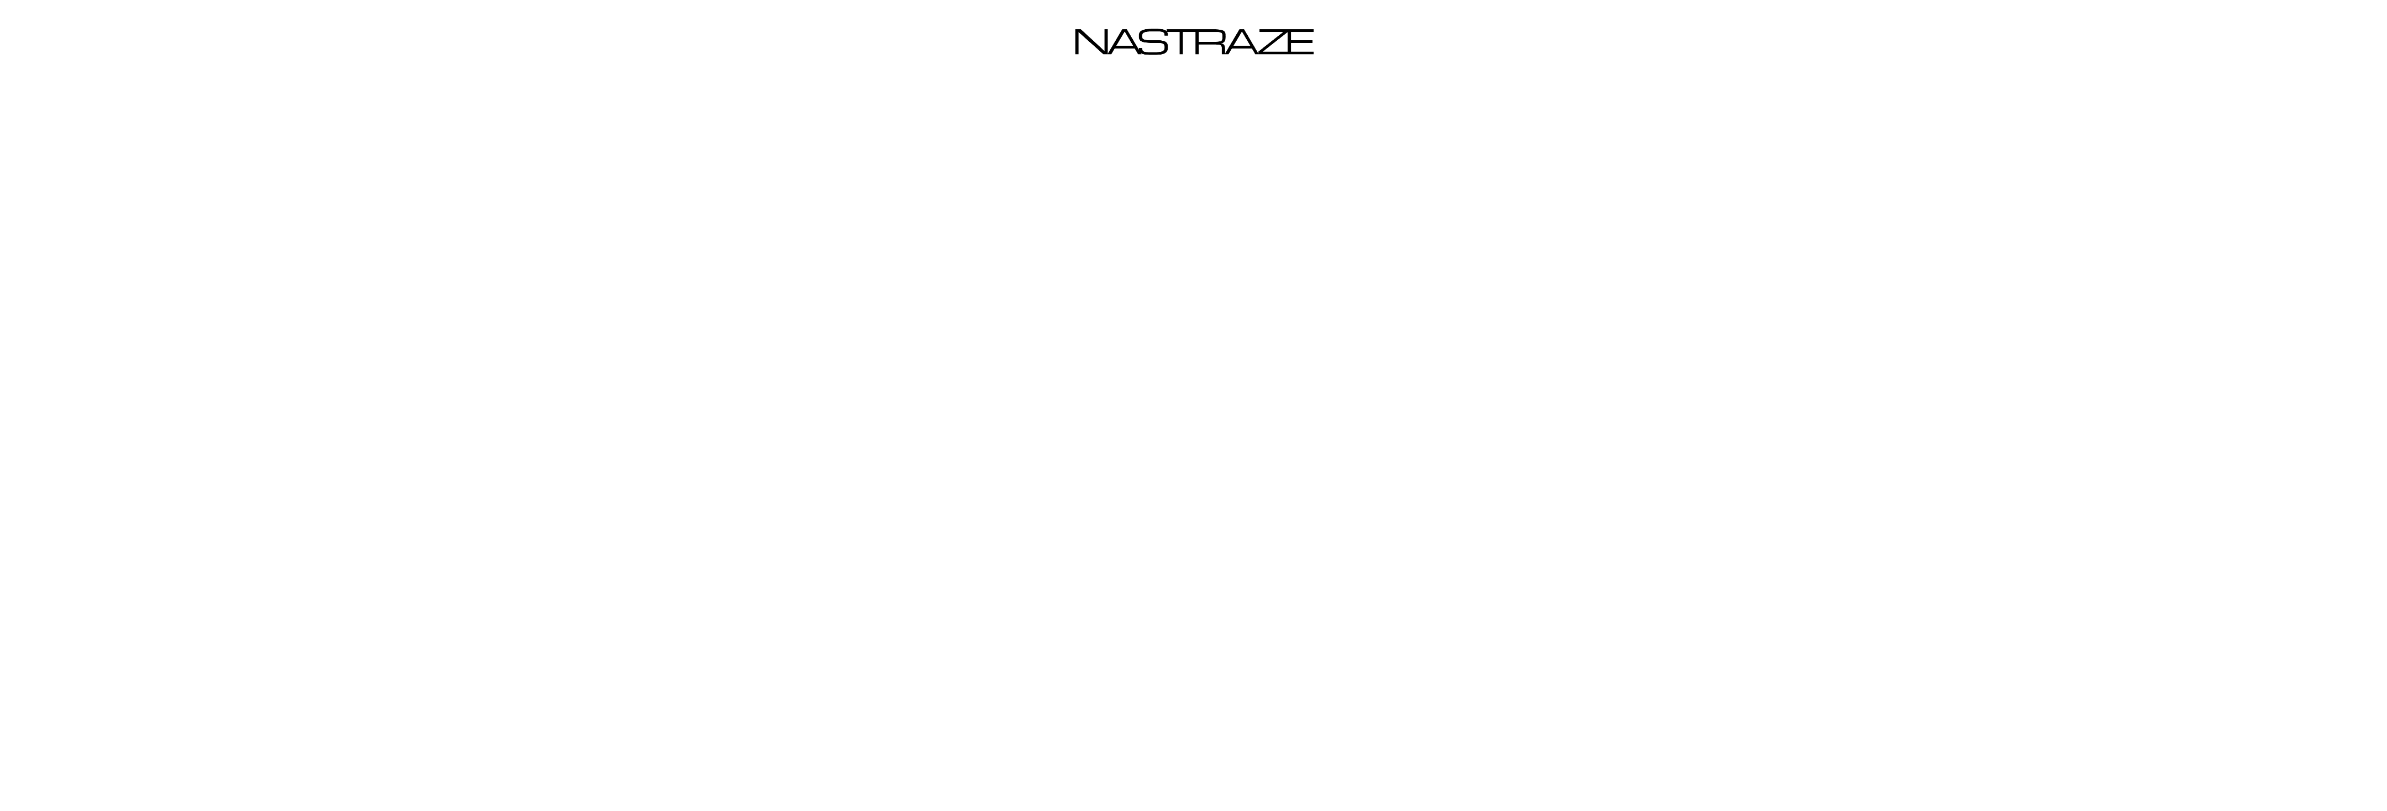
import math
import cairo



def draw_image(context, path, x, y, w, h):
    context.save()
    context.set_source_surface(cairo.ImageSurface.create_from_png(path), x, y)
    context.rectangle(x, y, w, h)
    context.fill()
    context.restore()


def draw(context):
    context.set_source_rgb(1, 1, 1)
    context.paint()
    draw_image(context, "images/1.png", 1075, 28, 239, 27)


surface = cairo.ImageSurface(cairo.Format.RGB24, 2387, 811)
context = cairo.Context(surface)
options = cairo.FontOptions()
options.set_hint_metrics(cairo.HintMetrics.OFF)
options.set_hint_style(cairo.HintStyle.NONE)
context.set_font_options(options)
context.set_miter_limit(4)
draw(context)
surface.write_to_png("out.png")
